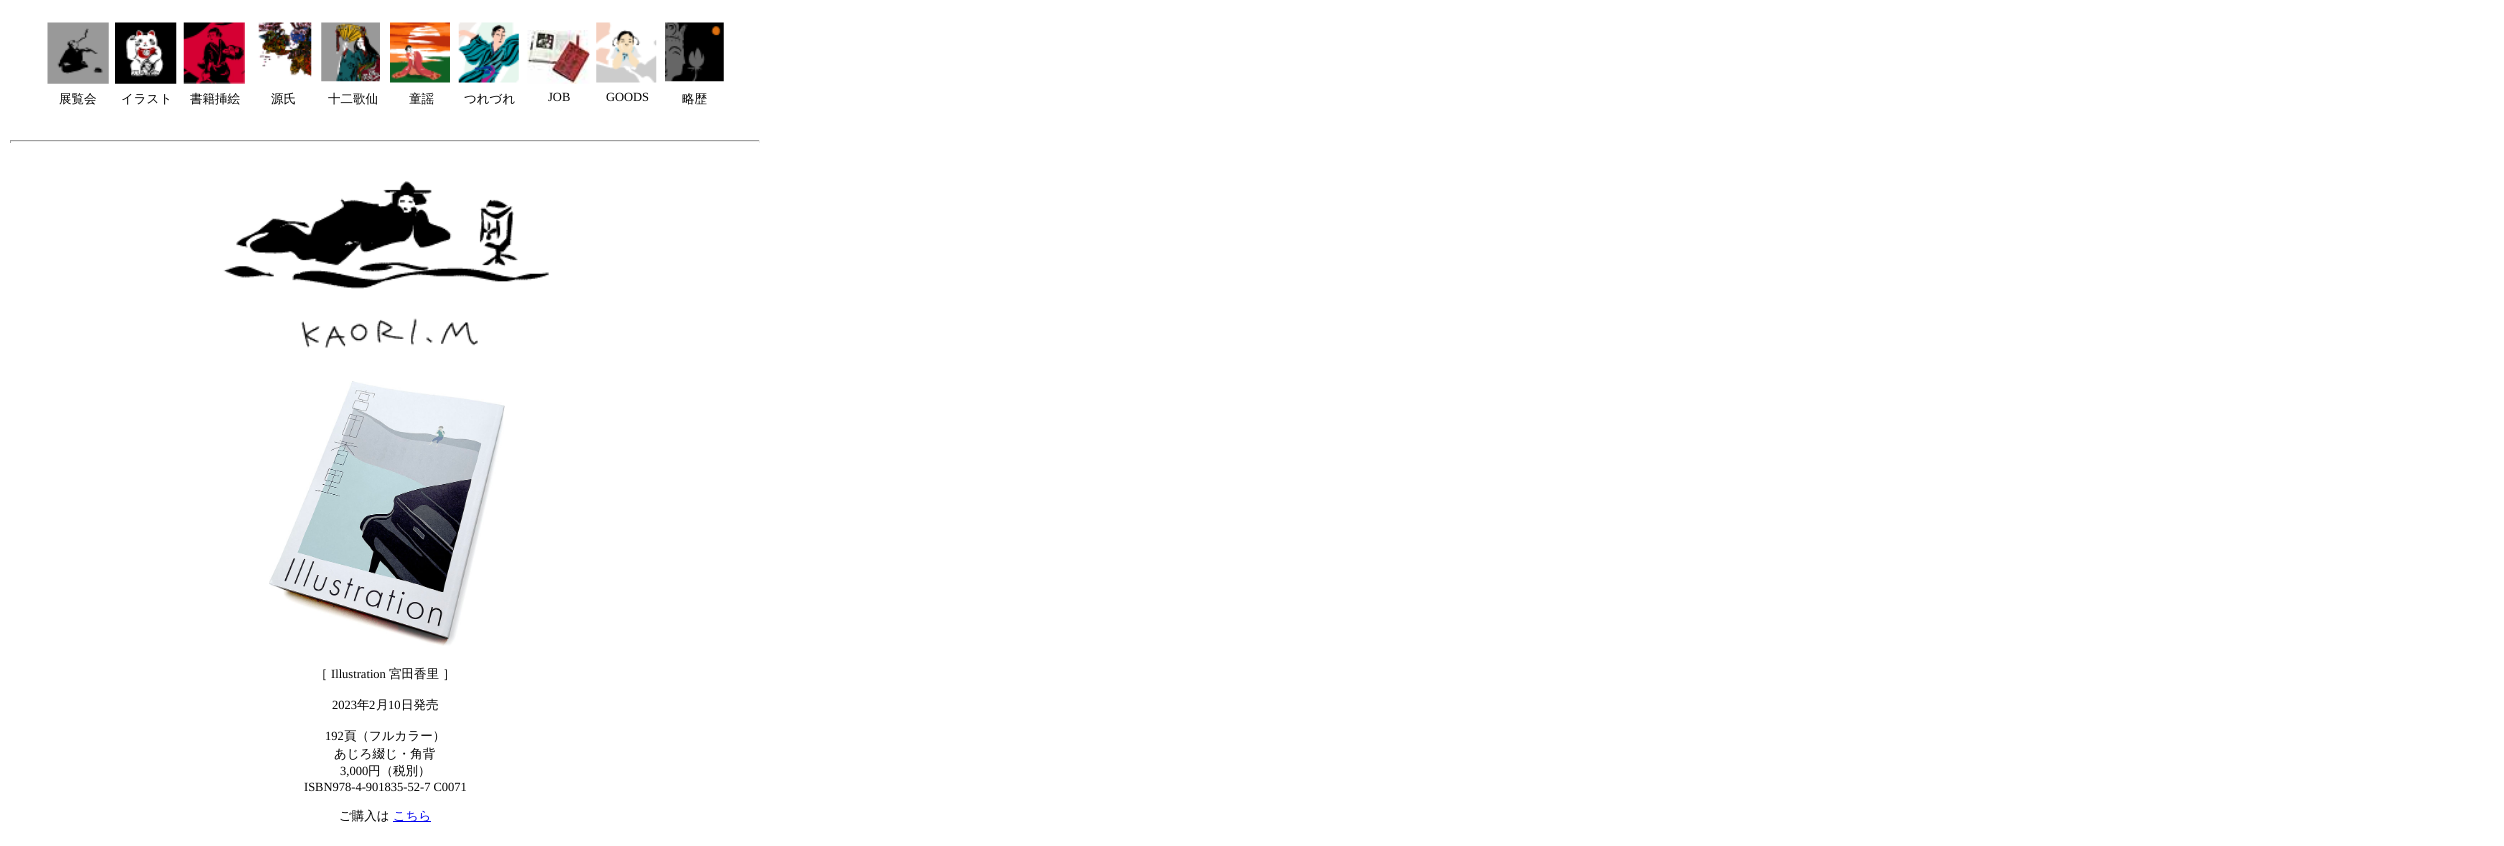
import math
import cairo



def draw_image(context, path, x, y, w, h):
    context.save()
    context.set_source_surface(cairo.ImageSurface.create_from_png(path), x, y)
    context.rectangle(x, y, w, h)
    context.fill()
    context.restore()


def draw(context):
    context.set_source_rgb(1, 1, 1)
    context.paint()
    draw_image(context, "images/1.png", 47, 22, 62, 62)
    draw_image(context, "images/2.png", 115, 22, 62, 62)
    draw_image(context, "images/3.png", 183, 22, 62, 62)
    draw_image(context, "images/4.png", 258, 22, 54, 55)
    draw_image(context, "images/5.png", 321, 22, 59, 60)
    draw_image(context, "images/6.png", 390, 22, 60, 61)
    draw_image(context, "images/7.png", 458, 22, 61, 61)
    draw_image(context, "images/8.png", 527, 30, 63, 54)
    draw_image(context, "images/9.png", 596, 22, 61, 61)
    draw_image(context, "images/10.png", 665, 22, 59, 60)
    context.set_source_rgb(159 / 255, 159 / 255, 159 / 255)
    context.rectangle(10, 140, 750, 1)
    context.fill()
    context.set_source_rgb(238 / 255, 238 / 255, 238 / 255)
    context.rectangle(759, 140, 1, 3)
    context.fill()
    context.rectangle(10, 141, 750, 1)
    context.fill()
    context.set_source_rgb(159 / 255, 159 / 255, 159 / 255)
    context.rectangle(10, 140, 1, 3)
    context.fill()
    draw_image(context, "images/11.png", 223, 181, 326, 167)
    draw_image(context, "images/12.png", 269, 381, 236, 265)
    context.set_source_rgb(0, 0, 238 / 255)
    context.rectangle(393, 821, 38, 1)
    context.fill()
    context.select_font_face("WenQuanYi Zen Hei Medium")
    context.set_font_size(12.5)
    context.set_source_rgb(0, 0, 0)
    context.move_to(59, 103)
    context.show_text("展覧会")
    context.move_to(121, 103)
    context.show_text("イラスト")
    context.move_to(190, 103)
    context.show_text("書籍挿絵")
    context.move_to(271, 103)
    context.show_text("源氏")
    context.move_to(328, 103)
    context.show_text("十二歌仙")
    context.move_to(409, 103)
    context.show_text("童謡")
    context.move_to(464, 103)
    context.show_text("つれづれ")
    context.select_font_face("Liberation Serif")
    context.move_to(548, 101)
    context.show_text("JOB")
    context.move_to(606, 101)
    context.show_text("GOODS")
    context.select_font_face("WenQuanYi Zen Hei Medium")
    context.move_to(682, 103)
    context.show_text("略歴")
    context.move_to(315, 678)
    context.show_text("［")
    context.select_font_face("Liberation Serif")
    context.move_to(331, 678)
    context.show_text("Illustration")
    context.select_font_face("WenQuanYi Zen Hei Medium")
    context.move_to(389, 678)
    context.show_text("宮田香里 ］")
    context.select_font_face("Liberation Serif")
    context.move_to(332, 709)
    context.show_text("2023")
    context.select_font_face("WenQuanYi Zen Hei Medium")
    context.move_to(357, 709)
    context.show_text("年")
    context.select_font_face("Liberation Serif")
    context.move_to(369, 709)
    context.show_text("2")
    context.select_font_face("WenQuanYi Zen Hei Medium")
    context.move_to(376, 709)
    context.show_text("月")
    context.select_font_face("Liberation Serif")
    context.move_to(388, 709)
    context.show_text("10")
    context.select_font_face("WenQuanYi Zen Hei Medium")
    context.move_to(401, 709)
    context.show_text("日発売")
    context.select_font_face("Liberation Serif")
    context.move_to(325, 740)
    context.show_text("192")
    context.select_font_face("WenQuanYi Zen Hei Medium")
    context.move_to(344, 740)
    context.show_text("頁（フルカラー）")
    context.move_to(334, 758)
    context.show_text("あじろ綴じ・角背")
    context.select_font_face("Liberation Serif")
    context.move_to(340, 775)
    context.show_text("3,000")
    context.select_font_face("WenQuanYi Zen Hei Medium")
    context.move_to(368, 775)
    context.show_text("円（税別）")
    context.select_font_face("Liberation Serif")
    context.move_to(304, 791)
    context.show_text("ISBN978-4-901835-52-7 C0071")
    context.select_font_face("WenQuanYi Zen Hei Medium")
    context.move_to(339, 820)
    context.show_text("ご購入は")
    context.set_source_rgb(0, 0, 238 / 255)
    context.move_to(393, 820)
    context.show_text("こちら")


surface = cairo.ImageSurface(cairo.Format.RGB24, 2504, 846)
context = cairo.Context(surface)
options = cairo.FontOptions()
options.set_hint_metrics(cairo.HintMetrics.OFF)
options.set_hint_style(cairo.HintStyle.NONE)
context.set_font_options(options)
context.set_miter_limit(4)
draw(context)
surface.write_to_png("out.png")
